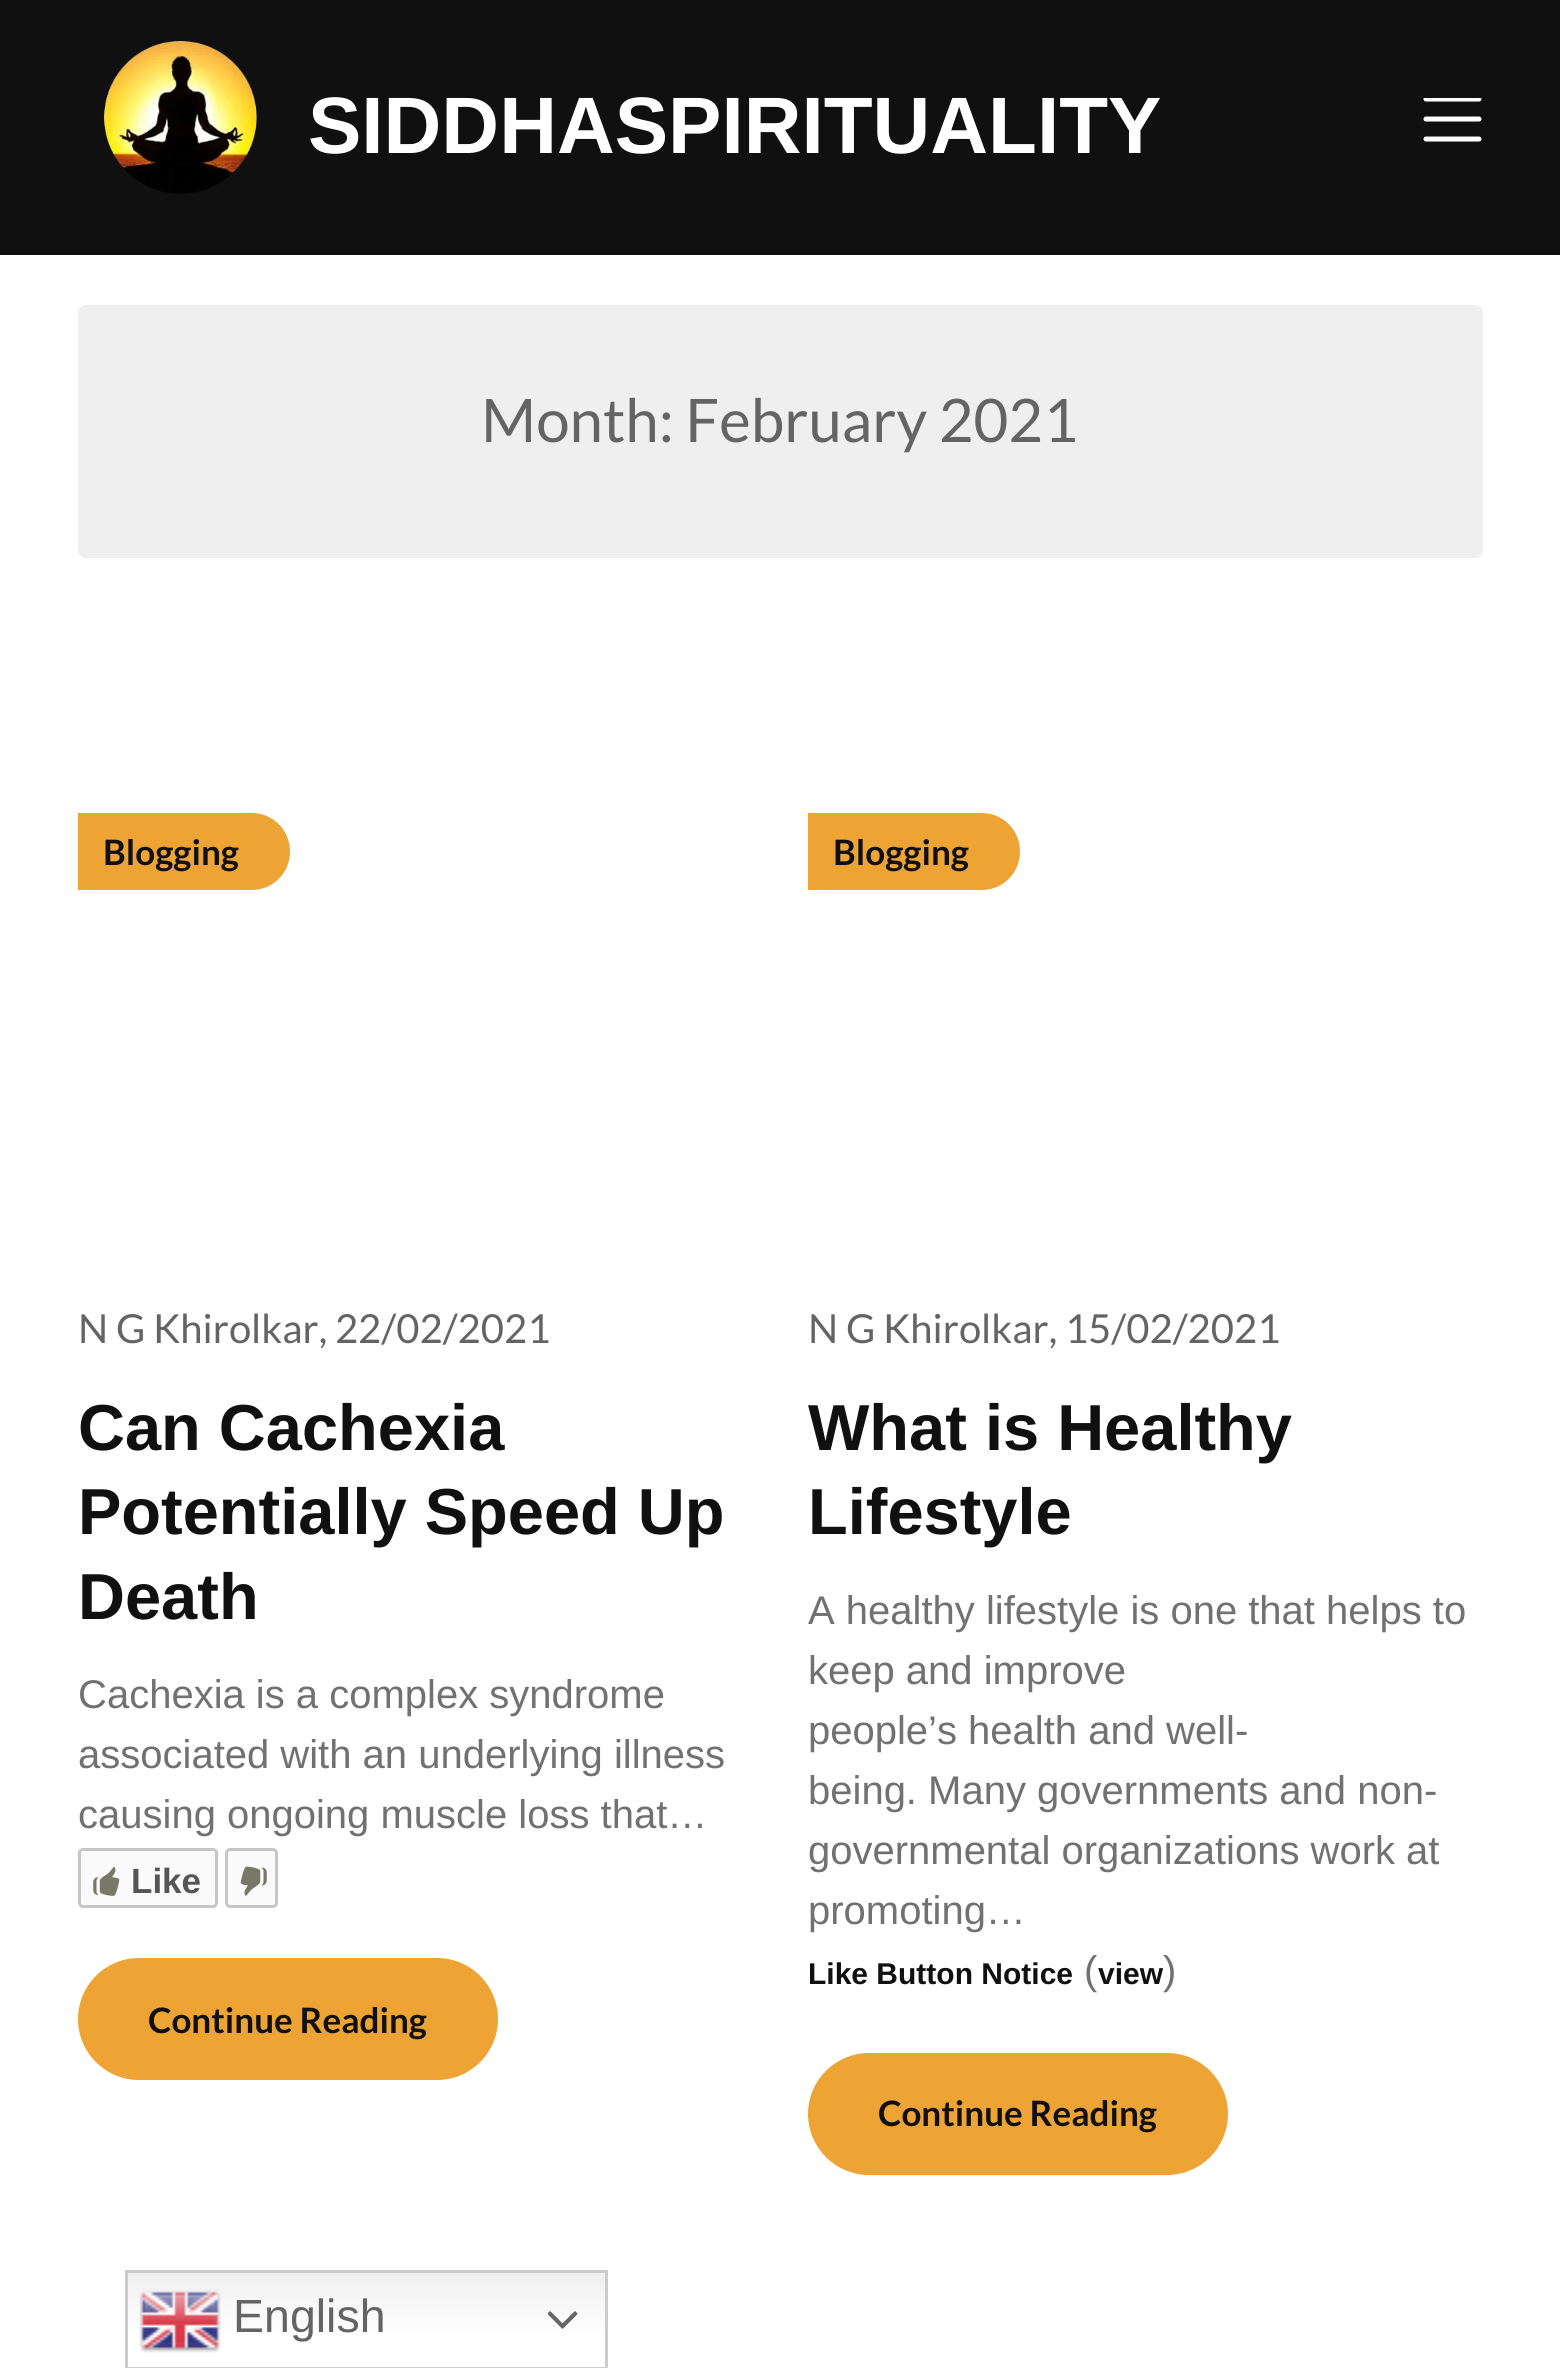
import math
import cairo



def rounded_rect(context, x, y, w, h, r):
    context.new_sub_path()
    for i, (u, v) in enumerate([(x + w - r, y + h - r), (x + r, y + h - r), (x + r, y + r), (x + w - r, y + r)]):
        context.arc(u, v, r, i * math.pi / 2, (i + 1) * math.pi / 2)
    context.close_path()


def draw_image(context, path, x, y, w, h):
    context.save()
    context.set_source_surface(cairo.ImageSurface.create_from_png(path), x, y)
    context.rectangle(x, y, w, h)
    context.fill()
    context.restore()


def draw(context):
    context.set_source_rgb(1, 1, 1)
    context.paint()
    context.set_source_rgb(16 / 255, 16 / 255, 16 / 255)
    context.rectangle(0, 0, 1560, 255)
    context.fill()
    draw_image(context, "images/1.png", 104, 41, 153, 153)
    context.save()
    context.rectangle(1423, 98, 60, 45)
    context.clip()
    context.new_path()
    context.move_to(1426, 99)
    context.line_to(1479, 99)
    context.set_source_rgb(1, 1, 1)
    context.set_line_width(5)
    context.set_line_cap(cairo.LineCap.ROUND)
    context.set_line_join(cairo.LineJoin.ROUND)
    context.stroke()
    context.restore()
    context.new_path()
    context.move_to(1426, 119)
    context.line_to(1479, 119)
    context.move_to(1426, 139)
    context.line_to(1479, 139)
    context.set_source_rgb(1, 1, 1)
    context.set_line_width(5)
    context.set_line_cap(cairo.LineCap.ROUND)
    context.set_line_join(cairo.LineJoin.ROUND)
    context.stroke()
    context.set_source_rgb(239 / 255, 239 / 255, 239 / 255)
    rounded_rect(context, 78, 305, 1405, 253, 8)
    context.fill()
    context.set_source_rgb(237 / 255, 164 / 255, 53 / 255)
    context.new_path()
    context.move_to(78, 813)
    context.line_to(251.5, 813)
    context.curve_to(273, 813, 290, 830, 290, 851.5)
    context.curve_to(290, 873, 273, 890, 251.5, 890)
    context.line_to(78, 890)
    context.close_path()
    context.fill()
    context.set_source_rgb(250 / 255, 250 / 255, 250 / 255)
    rounded_rect(context, 79.5, 1849.5, 137, 57, 3.5)
    context.fill_preserve()
    context.set_source_rgb(198 / 255, 198 / 255, 198 / 255)
    context.set_line_width(3)
    context.set_line_cap(cairo.LineCap.BUTT)
    context.set_line_join(cairo.LineJoin.MITER)
    context.stroke()
    draw_image(context, "images/2.png", 93, 1866, 27, 30)
    context.set_source_rgb(250 / 255, 250 / 255, 250 / 255)
    rounded_rect(context, 226.5, 1849.5, 50, 57, 3.5)
    context.fill_preserve()
    context.set_source_rgb(198 / 255, 198 / 255, 198 / 255)
    context.stroke()
    draw_image(context, "images/3.png", 240, 1866, 27, 30)
    context.set_source_rgb(237 / 255, 164 / 255, 53 / 255)
    rounded_rect(context, 78, 1958, 420, 122, 61)
    context.fill()
    context.new_path()
    context.move_to(808, 813)
    context.line_to(981.5, 813)
    context.curve_to(1003, 813, 1020, 830, 1020, 851.5)
    context.curve_to(1020, 873, 1003, 890, 981.5, 890)
    context.line_to(808, 890)
    context.close_path()
    context.fill()
    rounded_rect(context, 808, 2053, 420, 122, 61)
    context.fill()
    gradient = cairo.LinearGradient(366, 2270, 366, 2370)
    gradient.add_color_stop_rgba(0, 239 / 255, 239 / 255, 239 / 255, 1)
    gradient.add_color_stop_rgba(0.7, 1, 1, 1, 1)
    context.set_source(gradient)
    context.rectangle(128, 2273, 477, 56)
    context.fill()
    context.rectangle(126.5, 2271.5, 480, 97)
    context.set_source_rgb(204 / 255, 204 / 255, 204 / 255)
    context.stroke()
    draw_image(context, "images/4.png", 139, 2290, 82, 63)
    draw_image(context, "images/5.png", 548, 2311, 30, 18)
    context.select_font_face("Liberation Sans", cairo.FontSlant.NORMAL, cairo.FontWeight.BOLD)
    context.set_font_size(80)
    context.set_source_rgb(1, 1, 1)
    context.move_to(308, 153)
    context.show_text("SIDDHASPIRITUALITY")
    context.select_font_face("Lato")
    context.set_font_size(60)
    context.set_source_rgb(100 / 255, 100 / 255, 100 / 255)
    context.move_to(481, 442)
    context.show_text("Month: February 2021")
    context.select_font_face("Lato", cairo.FontSlant.NORMAL, cairo.FontWeight.BOLD)
    context.set_font_size(35)
    context.set_source_rgb(16 / 255, 16 / 255, 16 / 255)
    context.move_to(103, 865)
    context.show_text("Blogging")
    context.select_font_face("Lato")
    context.set_font_size(40)
    context.set_source_rgb(100 / 255, 100 / 255, 100 / 255)
    context.move_to(78, 1343)
    context.show_text("N G Khirolkar, 22/02/2021")
    context.select_font_face("Liberation Sans", cairo.FontSlant.NORMAL, cairo.FontWeight.BOLD)
    context.set_font_size(65)
    context.set_source_rgb(16 / 255, 16 / 255, 16 / 255)
    context.move_to(78, 1450)
    context.show_text("Can Cachexia")
    context.move_to(78, 1534)
    context.show_text("Potentially Speed Up")
    context.move_to(78, 1619)
    context.show_text("Death")
    context.select_font_face("Liberation Sans")
    context.set_font_size(40)
    context.set_source_rgb(113 / 255, 113 / 255, 113 / 255)
    context.move_to(78, 1708)
    context.show_text("Cachexia is a complex syndrome")
    context.move_to(78, 1768)
    context.show_text("associated with an underlying illness")
    context.move_to(78, 1828)
    context.show_text("causing ongoing muscle loss that…")
    context.select_font_face("Liberation Sans", cairo.FontSlant.NORMAL, cairo.FontWeight.BOLD)
    context.set_font_size(35)
    context.set_source_rgb(85 / 255, 85 / 255, 85 / 255)
    context.move_to(131, 1893)
    context.show_text("Like")
    context.select_font_face("Lato", cairo.FontSlant.NORMAL, cairo.FontWeight.BOLD)
    context.set_source_rgb(16 / 255, 16 / 255, 16 / 255)
    context.move_to(148, 2033)
    context.show_text("Continue Reading")
    context.move_to(833, 865)
    context.show_text("Blogging")
    context.select_font_face("Lato")
    context.set_font_size(40)
    context.set_source_rgb(100 / 255, 100 / 255, 100 / 255)
    context.move_to(808, 1343)
    context.show_text("N G Khirolkar, 15/02/2021")
    context.select_font_face("Liberation Sans", cairo.FontSlant.NORMAL, cairo.FontWeight.BOLD)
    context.set_font_size(65)
    context.set_source_rgb(16 / 255, 16 / 255, 16 / 255)
    context.move_to(808, 1450)
    context.show_text("What is Healthy")
    context.move_to(808, 1534)
    context.show_text("Lifestyle")
    context.select_font_face("Liberation Sans")
    context.set_font_size(40)
    context.set_source_rgb(113 / 255, 113 / 255, 113 / 255)
    context.move_to(808, 1624)
    context.show_text("A healthy lifestyle is one that helps to")
    context.move_to(808, 1684)
    context.show_text("keep and improve")
    context.move_to(808, 1744)
    context.show_text("people’s health and well-")
    context.move_to(808, 1804)
    context.show_text("being. Many governments and non-")
    context.move_to(808, 1864)
    context.show_text("governmental organizations work at")
    context.move_to(808, 1924)
    context.show_text("promoting…")
    context.select_font_face("Liberation Sans", cairo.FontSlant.NORMAL, cairo.FontWeight.BOLD)
    context.set_font_size(30)
    context.set_source_rgb(16 / 255, 16 / 255, 16 / 255)
    context.move_to(808, 1984)
    context.show_text("Like Button Notice")
    context.select_font_face("Liberation Sans")
    context.set_font_size(40)
    context.set_source_rgb(113 / 255, 113 / 255, 113 / 255)
    context.move_to(1084, 1984)
    context.show_text("(")
    context.move_to(1163, 1984)
    context.show_text(")")
    context.select_font_face("Liberation Sans", cairo.FontSlant.NORMAL, cairo.FontWeight.BOLD)
    context.set_font_size(30)
    context.set_source_rgb(16 / 255, 16 / 255, 16 / 255)
    context.move_to(1098, 1984)
    context.show_text("view")
    context.select_font_face("Lato", cairo.FontSlant.NORMAL, cairo.FontWeight.BOLD)
    context.set_font_size(35)
    context.move_to(878, 2126)
    context.show_text("Continue Reading")
    context.select_font_face("Liberation Sans")
    context.set_font_size(46.5)
    context.set_source_rgb(100 / 255, 100 / 255, 100 / 255)
    context.move_to(233, 2332)
    context.show_text("English")


surface = cairo.ImageSurface(cairo.Format.RGB24, 1560, 2368)
context = cairo.Context(surface)
options = cairo.FontOptions()
options.set_hint_metrics(cairo.HintMetrics.OFF)
options.set_hint_style(cairo.HintStyle.NONE)
context.set_font_options(options)
context.set_miter_limit(4)
draw(context)
surface.write_to_png("out.png")
